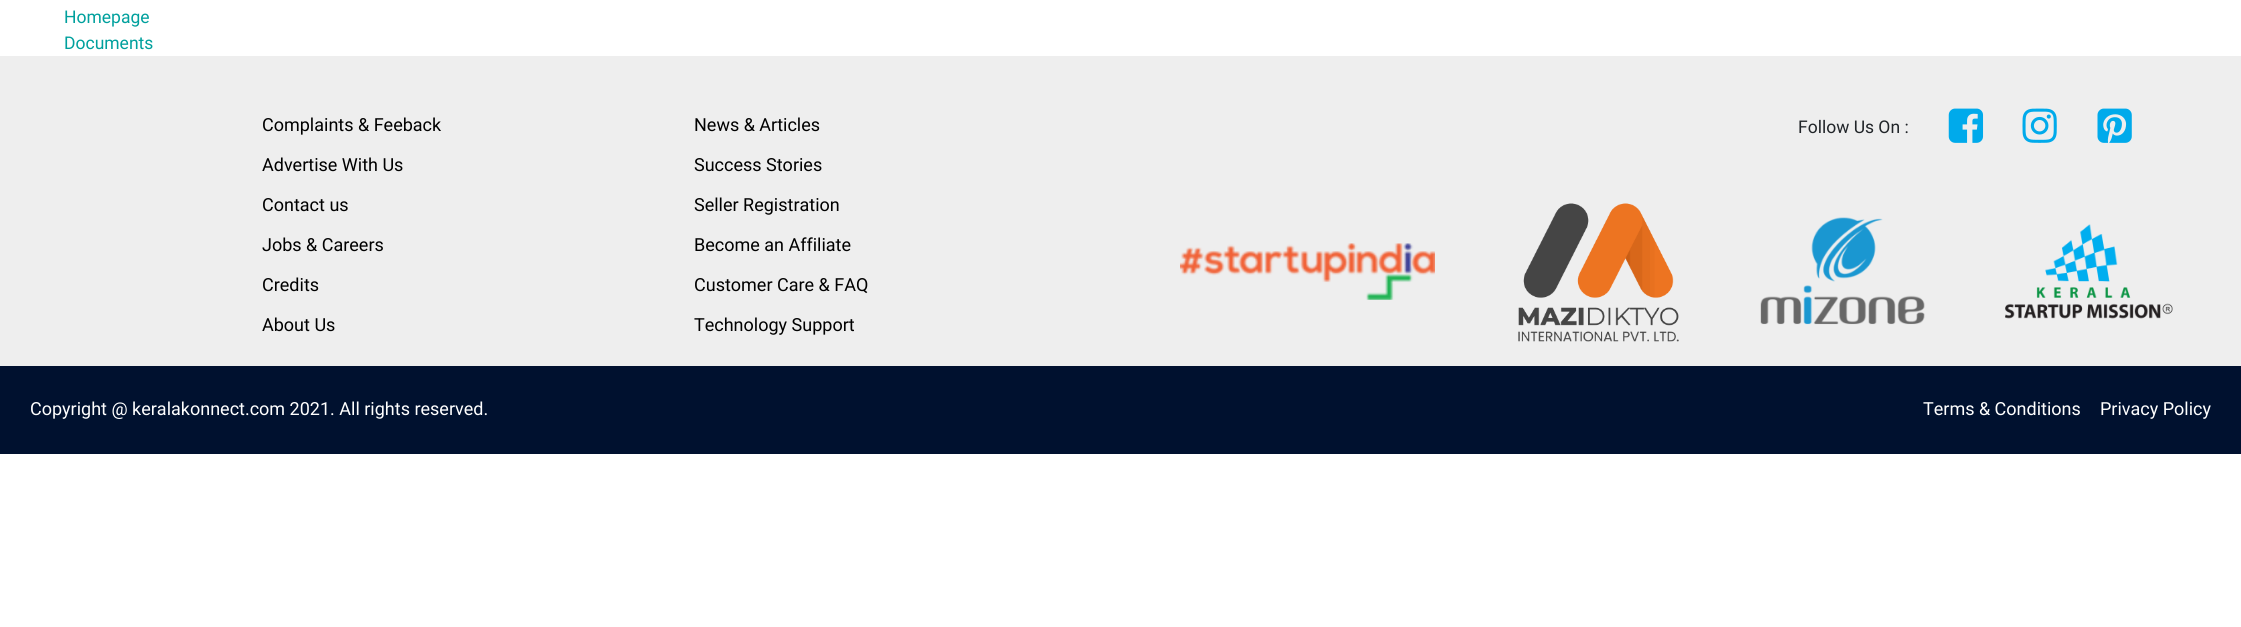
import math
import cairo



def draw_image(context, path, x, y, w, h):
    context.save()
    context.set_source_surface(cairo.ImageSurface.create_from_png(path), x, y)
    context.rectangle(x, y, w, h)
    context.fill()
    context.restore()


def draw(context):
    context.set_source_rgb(1, 1, 1)
    context.paint()
    context.set_source_rgb(238 / 255, 238 / 255, 238 / 255)
    context.rectangle(0, 56, 2241, 310)
    context.fill()
    draw_image(context, "images/1.png", 1948, 108, 36, 35)
    draw_image(context, "images/2.png", 2022, 108, 35, 35)
    draw_image(context, "images/3.png", 2097, 108, 35, 35)
    draw_image(context, "images/4.png", 1180, 243, 255, 57)
    draw_image(context, "images/5.png", 1518, 203, 161, 139)
    draw_image(context, "images/6.png", 1760, 217, 165, 108)
    draw_image(context, "images/7.png", 2005, 224, 168, 95)
    context.set_source_rgb(0, 17 / 255, 47 / 255)
    context.rectangle(0, 366, 2241, 88)
    context.fill()
    context.select_font_face("Roboto")
    context.set_font_size(17.5)
    context.set_source_rgb(0, 160 / 255, 157 / 255)
    context.move_to(64, 23)
    context.show_text("Homepage")
    context.move_to(64, 49)
    context.show_text("Documents")
    context.set_font_size(18)
    context.set_source_rgb(0, 0, 0)
    context.move_to(262, 131)
    context.show_text("Complaints & Feeback")
    context.move_to(262, 171)
    context.show_text("Advertise With Us")
    context.move_to(262, 211)
    context.show_text("Contact us")
    context.move_to(262, 251)
    context.show_text("Jobs & Careers")
    context.move_to(262, 291)
    context.show_text("Credits")
    context.move_to(262, 331)
    context.show_text("About Us")
    context.move_to(694, 131)
    context.show_text("News & Articles")
    context.move_to(694, 171)
    context.show_text("Success Stories")
    context.move_to(694, 211)
    context.show_text("Seller Registration")
    context.move_to(694, 251)
    context.show_text("Become an Affiliate")
    context.move_to(694, 291)
    context.show_text("Customer Care & FAQ")
    context.move_to(694, 331)
    context.show_text("Technology Support")
    context.set_font_size(17.5)
    context.set_source_rgb(33 / 255, 37 / 255, 41 / 255)
    context.move_to(1798, 133)
    context.show_text("Follow Us On :")
    context.set_font_size(18)
    context.set_source_rgb(1, 1, 1)
    context.move_to(30, 415)
    context.show_text("Copyright @ keralakonnect.com 2021. All rights reserved.")
    context.move_to(1923, 415)
    context.show_text("Terms & Conditions")
    context.move_to(2100, 415)
    context.show_text("Privacy Policy")


surface = cairo.ImageSurface(cairo.Format.RGB24, 2241, 627)
context = cairo.Context(surface)
options = cairo.FontOptions()
options.set_hint_metrics(cairo.HintMetrics.OFF)
options.set_hint_style(cairo.HintStyle.NONE)
context.set_font_options(options)
context.set_miter_limit(4)
draw(context)
surface.write_to_png("out.png")
